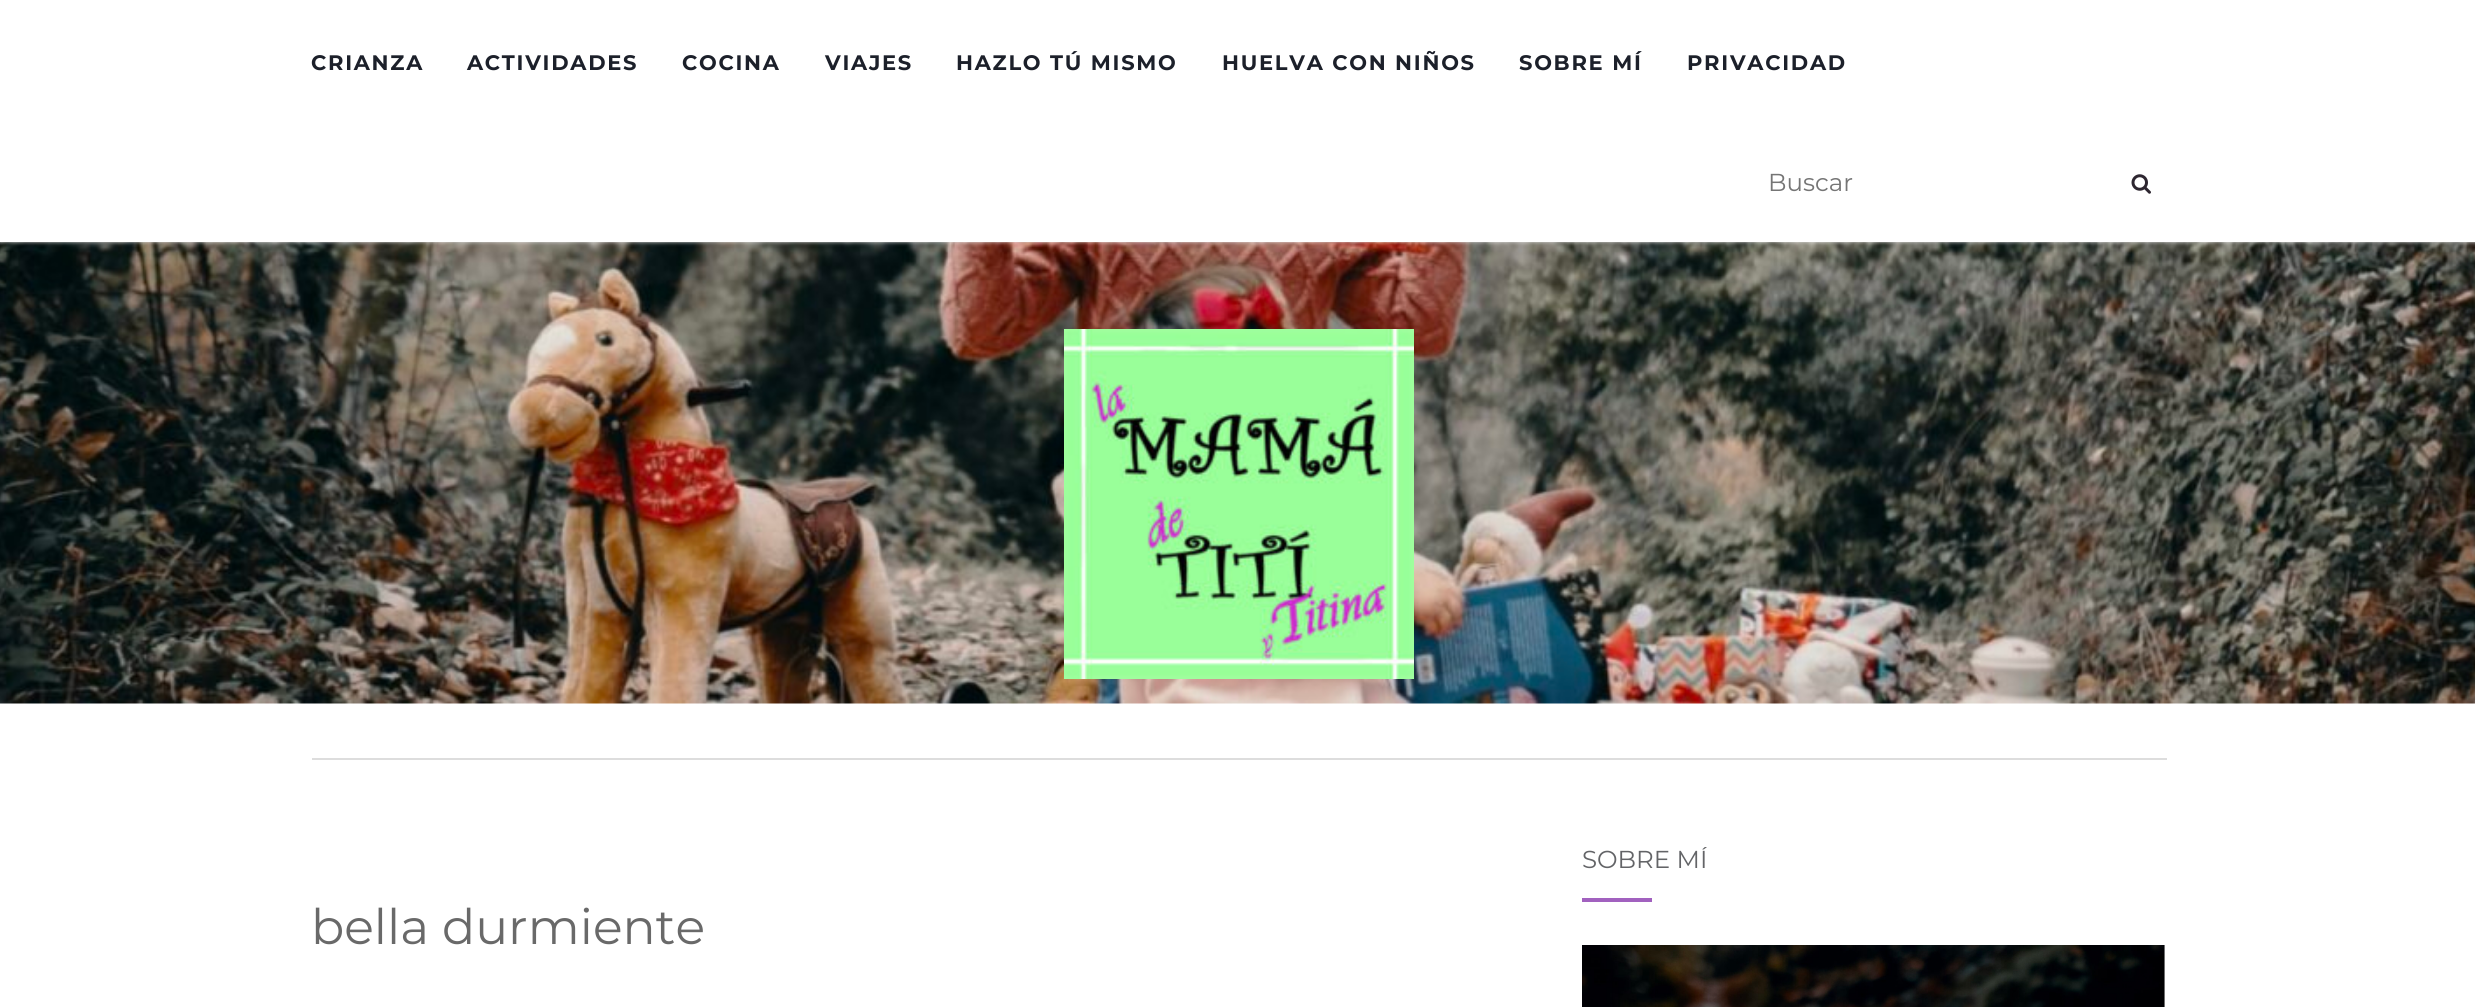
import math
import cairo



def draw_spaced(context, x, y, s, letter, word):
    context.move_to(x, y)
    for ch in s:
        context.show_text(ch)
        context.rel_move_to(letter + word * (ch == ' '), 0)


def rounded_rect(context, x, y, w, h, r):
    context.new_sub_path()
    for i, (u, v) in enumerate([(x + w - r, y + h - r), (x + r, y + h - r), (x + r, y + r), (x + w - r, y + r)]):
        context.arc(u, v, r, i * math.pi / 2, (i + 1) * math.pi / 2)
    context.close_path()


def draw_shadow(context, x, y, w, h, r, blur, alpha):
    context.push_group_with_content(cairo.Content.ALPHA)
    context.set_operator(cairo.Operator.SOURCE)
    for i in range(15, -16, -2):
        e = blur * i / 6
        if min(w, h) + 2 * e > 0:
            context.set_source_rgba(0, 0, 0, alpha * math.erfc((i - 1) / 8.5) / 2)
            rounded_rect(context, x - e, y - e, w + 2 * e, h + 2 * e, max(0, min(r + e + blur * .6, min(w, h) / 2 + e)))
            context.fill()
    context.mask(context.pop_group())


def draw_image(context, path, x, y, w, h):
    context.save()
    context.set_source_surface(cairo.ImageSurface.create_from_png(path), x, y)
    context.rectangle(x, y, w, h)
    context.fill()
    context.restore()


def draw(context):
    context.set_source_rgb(1, 1, 1)
    context.paint()
    draw_image(context, "images/1.png", 0, 242, 2475, 462)
    context.set_source_rgb(227 / 255, 227 / 255, 227 / 255)
    draw_shadow(context, 0, 0, 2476, 242, 0, 2, 1)
    context.set_source_rgb(1, 1, 1)
    context.rectangle(0, 0, 2475, 242)
    context.fill()
    draw_image(context, "images/2.png", 2131, 174, 20, 20)
    draw_image(context, "images/3.png", 1064, 329, 350, 350)
    context.set_source_rgb(221 / 255, 221 / 255, 221 / 255)
    context.rectangle(312, 758, 1855, 2)
    context.fill()
    context.set_source_rgb(161 / 255, 97 / 255, 191 / 255)
    context.rectangle(1582, 898, 70, 4)
    context.fill()
    draw_image(context, "images/4.png", 1582, 945, 583, 62)
    context.select_font_face("Montserrat", cairo.FontSlant.NORMAL, cairo.FontWeight.BOLD)
    context.set_font_size(21)
    context.set_source_rgb(28 / 255, 32 / 255, 42 / 255)
    draw_spaced(context, 311, 70, "CRIANZA", 1.75, 0)
    draw_spaced(context, 467, 70, "ACTIVIDADES", 1.75, 0)
    draw_spaced(context, 682, 70, "COCINA", 1.75, 0)
    draw_spaced(context, 825, 70, "VIAJES", 1.75, 0)
    draw_spaced(context, 956, 70, "HAZLO TÚ MISMO", 1.75, 0)
    draw_spaced(context, 1222, 70, "HUELVA CON NIÑOS", 1.75, 0)
    draw_spaced(context, 1519, 70, "SOBRE MÍ", 1.75, 0)
    draw_spaced(context, 1687, 70, "PRIVACIDAD", 1.75, 0)
    context.select_font_face("Montserrat")
    context.set_font_size(24.5)
    context.set_source_rgb(117 / 255, 117 / 255, 117 / 255)
    context.move_to(1768, 191)
    context.show_text("Buscar")
    context.save()
    context.rectangle(1582, 847, 583, 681)
    context.clip()
    context.set_source_rgb(99 / 255, 100 / 255, 103 / 255)
    context.move_to(1582, 868)
    context.show_text("SOBRE MÍ")
    context.restore()
    context.set_font_size(49)
    context.set_source_rgb(105 / 255, 105 / 255, 105 / 255)
    context.move_to(311, 944)
    context.show_text("bella durmiente")


surface = cairo.ImageSurface(cairo.Format.RGB24, 2475, 1007)
context = cairo.Context(surface)
options = cairo.FontOptions()
options.set_hint_metrics(cairo.HintMetrics.OFF)
options.set_hint_style(cairo.HintStyle.NONE)
context.set_font_options(options)
context.set_miter_limit(4)
draw(context)
surface.write_to_png("out.png")
